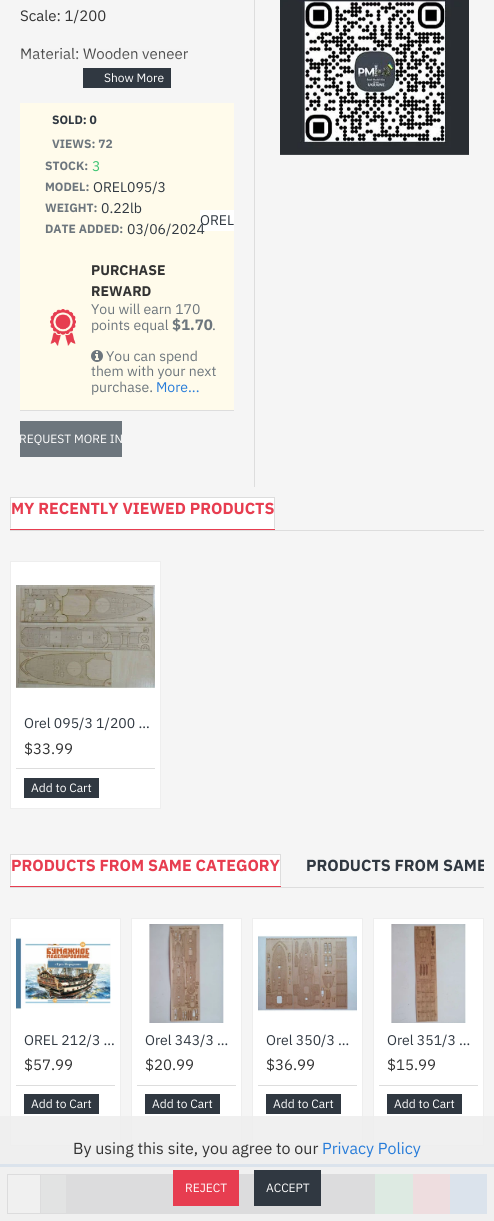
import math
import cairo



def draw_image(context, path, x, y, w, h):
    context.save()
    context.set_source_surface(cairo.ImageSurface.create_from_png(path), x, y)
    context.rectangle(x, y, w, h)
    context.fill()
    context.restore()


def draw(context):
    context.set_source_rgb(245 / 255, 245 / 255, 245 / 255)
    context.paint()
    context.set_source_rgb(48 / 255, 56 / 255, 65 / 255)
    context.rectangle(83, 68, 88, 20)
    context.fill()
    context.set_source_rgb(1, 251 / 255, 235 / 255)
    context.rectangle(20, 103, 214, 307)
    context.fill()
    context.set_source_rgb(1, 1, 1)
    context.rectangle(200, 210, 34, 21)
    context.fill()
    draw_image(context, "images/1.png", 50, 309, 26, 37)
    draw_image(context, "images/2.png", 91, 350, 12, 12)
    context.rectangle(0, 1167, 494, 54)
    context.fill()
    context.set_source_rgb(39 / 255, 124 / 255, 217 / 255)
    context.rectangle(0, 1164, 494, 3)
    context.fill()
    context.rectangle(7.5, 1174.5, 59, 39)
    context.set_source_rgb(48 / 255, 56 / 255, 65 / 255)
    context.set_line_width(1)
    context.stroke()
    context.rectangle(40, 1175, 1, 38)
    context.fill()
    context.set_source_rgb(109 / 255, 118 / 255, 125 / 255)
    context.rectangle(41, 1175, 25, 38)
    context.fill()
    context.set_source_rgb(48 / 255, 56 / 255, 65 / 255)
    context.rectangle(67, 1174, 308, 40)
    context.fill()
    context.set_source_rgb(60 / 255, 196 / 255, 114 / 255)
    context.rectangle(375, 1174, 38, 40)
    context.fill()
    context.set_source_rgb(231 / 255, 61 / 255, 80 / 255)
    context.rectangle(413, 1174, 37, 40)
    context.fill()
    context.set_source_rgb(39 / 255, 124 / 255, 217 / 255)
    context.rectangle(450, 1174, 37, 40)
    context.fill()
    context.set_source_rgb(221 / 255, 221 / 255, 221 / 255)
    context.rectangle(20, 410, 214, 1)
    context.fill()
    context.set_source_rgb(109 / 255, 118 / 255, 125 / 255)
    context.rectangle(20, 421, 102, 36)
    context.fill()
    context.set_source_rgb(221 / 255, 221 / 255, 221 / 255)
    context.rectangle(254, 0, 1, 487)
    context.fill()
    draw_image(context, "images/3.png", 280, 0, 189, 155)
    context.rectangle(10, 530, 474, 1)
    context.fill()
    context.set_source_rgb(231 / 255, 61 / 255, 80 / 255)
    context.rectangle(10, 529, 265, 1)
    context.fill()
    context.set_source_rgb(1, 1, 1)
    context.rectangle(10, 498, 265, 31)
    context.fill()
    context.set_source_rgb(221 / 255, 221 / 255, 221 / 255)
    context.rectangle(10, 497, 265, 1)
    context.fill()
    context.new_path()
    context.move_to(275, 497)
    context.line_to(275, 529)
    context.line_to(274, 528)
    context.line_to(274, 498)
    context.close_path()
    context.fill()
    context.new_path()
    context.move_to(10, 529)
    context.line_to(10, 497)
    context.line_to(11, 498)
    context.line_to(11, 528)
    context.close_path()
    context.fill()
    context.set_source_rgb(1, 1, 1)
    context.rectangle(10.5, 561.5, 150, 247)
    context.fill_preserve()
    context.set_source_rgb(238 / 255, 238 / 255, 238 / 255)
    context.stroke()
    draw_image(context, "images/4.png", 16, 585, 139, 104)
    context.set_source_rgb(221 / 255, 221 / 255, 221 / 255)
    context.rectangle(16, 768, 139, 1)
    context.fill()
    context.set_source_rgb(48 / 255, 56 / 255, 65 / 255)
    context.rectangle(24, 778, 75, 20)
    context.fill()
    context.set_source_rgb(221 / 255, 221 / 255, 221 / 255)
    context.rectangle(10, 887, 474, 1)
    context.fill()
    context.set_source_rgb(231 / 255, 61 / 255, 80 / 255)
    context.rectangle(10, 886, 271, 1)
    context.fill()
    context.set_source_rgb(1, 1, 1)
    context.rectangle(10, 855, 271, 31)
    context.fill()
    context.set_source_rgb(221 / 255, 221 / 255, 221 / 255)
    context.rectangle(10, 854, 271, 1)
    context.fill()
    context.new_path()
    context.move_to(281, 854)
    context.line_to(281, 886)
    context.line_to(280, 885)
    context.line_to(280, 855)
    context.close_path()
    context.fill()
    context.new_path()
    context.move_to(10, 886)
    context.line_to(10, 854)
    context.line_to(11, 855)
    context.line_to(11, 885)
    context.close_path()
    context.fill()
    context.set_source_rgb(1, 1, 1)
    context.rectangle(10.5, 918.5, 110, 227)
    context.fill_preserve()
    context.set_source_rgb(238 / 255, 238 / 255, 238 / 255)
    context.stroke()
    draw_image(context, "images/5.png", 16, 937, 95, 72)
    context.set_source_rgb(221 / 255, 221 / 255, 221 / 255)
    context.rectangle(16, 1085, 99, 1)
    context.fill()
    context.set_source_rgb(48 / 255, 56 / 255, 65 / 255)
    context.rectangle(24, 1094, 75, 20)
    context.fill()
    context.set_source_rgb(1, 1, 1)
    context.rectangle(131.5, 918.5, 110, 227)
    context.fill_preserve()
    context.set_source_rgb(238 / 255, 238 / 255, 238 / 255)
    context.stroke()
    draw_image(context, "images/6.png", 149, 924, 75, 99)
    context.set_source_rgb(221 / 255, 221 / 255, 221 / 255)
    context.rectangle(137, 1085, 99, 1)
    context.fill()
    context.set_source_rgb(48 / 255, 56 / 255, 65 / 255)
    context.rectangle(145, 1094, 75, 20)
    context.fill()
    context.set_source_rgb(1, 1, 1)
    context.rectangle(252.5, 918.5, 110, 227)
    context.fill_preserve()
    context.set_source_rgb(238 / 255, 238 / 255, 238 / 255)
    context.stroke()
    draw_image(context, "images/7.png", 258, 935, 99, 77)
    context.set_source_rgb(221 / 255, 221 / 255, 221 / 255)
    context.rectangle(258, 1085, 99, 1)
    context.fill()
    context.set_source_rgb(48 / 255, 56 / 255, 65 / 255)
    context.rectangle(266, 1094, 75, 20)
    context.fill()
    context.set_source_rgb(1, 1, 1)
    context.rectangle(373.5, 918.5, 110, 227)
    context.fill_preserve()
    context.set_source_rgb(238 / 255, 238 / 255, 238 / 255)
    context.stroke()
    draw_image(context, "images/8.png", 391, 924, 75, 99)
    context.set_source_rgb(221 / 255, 221 / 255, 221 / 255)
    context.rectangle(379, 1085, 99, 1)
    context.fill()
    context.set_source_rgb(48 / 255, 56 / 255, 65 / 255)
    context.rectangle(387, 1094, 75, 20)
    context.fill()
    context.set_source_rgba(238 / 255, 238 / 255, 238 / 255, 0.9)
    context.rectangle(0, 1116, 494, 105)
    context.fill()
    context.set_source_rgb(231 / 255, 61 / 255, 80 / 255)
    context.rectangle(173, 1170, 66, 36)
    context.fill()
    context.set_source_rgb(48 / 255, 56 / 255, 65 / 255)
    context.rectangle(254, 1170, 67, 36)
    context.fill()
    context.select_font_face("IBM Plex Sans")
    context.set_font_size(15)
    context.set_source_rgb(51 / 255, 51 / 255, 51 / 255)
    context.move_to(20, 21)
    context.show_text("Scale: 1/200")
    context.move_to(20, 59)
    context.show_text("Material: Wooden veneer")
    gradient = cairo.LinearGradient(127, 48, 127, 88)
    gradient.add_color_stop_rgba(0, 245 / 255, 245 / 255, 245 / 255, 0)
    gradient.add_color_stop_rgba(1, 245 / 255, 245 / 255, 245 / 255, 1)
    context.set_source(gradient)
    context.rectangle(21, 49, 167, 11)
    context.fill()
    context.set_font_size(12)
    context.set_source_rgb(1, 1, 1)
    context.move_to(104, 82)
    context.show_text("Show More")
    context.select_font_face("IBM Plex Sans", cairo.FontSlant.NORMAL, cairo.FontWeight.BOLD)
    context.set_source_rgb(48 / 255, 56 / 255, 65 / 255)
    context.move_to(52, 124)
    context.show_text("SOLD: 0")
    context.set_source_rgb(109 / 255, 118 / 255, 125 / 255)
    context.move_to(52, 148)
    context.show_text("VIEWS: 72")
    context.move_to(45, 170)
    context.show_text("STOCK:")
    context.select_font_face("IBM Plex Sans")
    context.set_font_size(14)
    context.set_source_rgb(60 / 255, 196 / 255, 114 / 255)
    context.move_to(92, 171)
    context.show_text("3")
    context.select_font_face("IBM Plex Sans", cairo.FontSlant.NORMAL, cairo.FontWeight.BOLD)
    context.set_font_size(12)
    context.set_source_rgb(109 / 255, 118 / 255, 125 / 255)
    context.move_to(45, 191)
    context.show_text("MODEL:")
    context.select_font_face("IBM Plex Sans")
    context.set_font_size(14)
    context.set_source_rgb(48 / 255, 56 / 255, 65 / 255)
    context.move_to(93, 192)
    context.show_text("OREL095/3")
    context.select_font_face("IBM Plex Sans", cairo.FontSlant.NORMAL, cairo.FontWeight.BOLD)
    context.set_font_size(12)
    context.set_source_rgb(109 / 255, 118 / 255, 125 / 255)
    context.move_to(45, 212)
    context.show_text("WEIGHT:")
    context.select_font_face("IBM Plex Sans")
    context.set_font_size(14)
    context.set_source_rgb(48 / 255, 56 / 255, 65 / 255)
    context.move_to(101, 213)
    context.show_text("0.22lb")
    context.select_font_face("IBM Plex Sans", cairo.FontSlant.NORMAL, cairo.FontWeight.BOLD)
    context.set_font_size(12)
    context.set_source_rgb(109 / 255, 118 / 255, 125 / 255)
    context.move_to(45, 233)
    context.show_text("DATE ADDED:")
    context.select_font_face("IBM Plex Sans")
    context.set_font_size(14)
    context.set_source_rgb(48 / 255, 56 / 255, 65 / 255)
    context.move_to(127, 234)
    context.show_text("03/06/2024")
    context.move_to(200, 225)
    context.show_text("OREL")
    context.select_font_face("IBM Plex Sans", cairo.FontSlant.NORMAL, cairo.FontWeight.BOLD)
    context.set_source_rgb(51 / 255, 51 / 255, 51 / 255)
    context.move_to(91, 275)
    context.show_text("PURCHASE")
    context.move_to(91, 296)
    context.show_text("REWARD")
    context.select_font_face("IBM Plex Sans")
    context.set_source_rgb(109 / 255, 118 / 255, 125 / 255)
    context.move_to(91, 314)
    context.show_text("You will earn 170")
    context.move_to(91, 330)
    context.show_text("points equal")
    context.select_font_face("IBM Plex Sans", cairo.FontSlant.NORMAL, cairo.FontWeight.BOLD)
    context.set_font_size(15)
    context.move_to(172, 330)
    context.show_text("$1.70")
    context.select_font_face("IBM Plex Sans")
    context.set_font_size(14)
    context.move_to(212, 330)
    context.show_text(".")
    context.move_to(106, 361)
    context.show_text("You can spend")
    context.move_to(91, 376)
    context.show_text("them with your next")
    context.move_to(91, 392)
    context.show_text("purchase.")
    context.set_source_rgb(39 / 255, 124 / 255, 217 / 255)
    context.move_to(156, 392)
    context.show_text("More...")
    context.set_font_size(12)
    context.set_source_rgb(1, 1, 1)
    context.move_to(19, 443)
    context.show_text("REQUEST MORE IN")
    context.select_font_face("IBM Plex Sans", cairo.FontSlant.NORMAL, cairo.FontWeight.BOLD)
    context.set_font_size(16)
    context.set_source_rgb(231 / 255, 61 / 255, 80 / 255)
    context.move_to(11, 514)
    context.show_text("MY RECENTLY VIEWED PRODUCTS")
    context.select_font_face("IBM Plex Sans")
    context.set_font_size(14)
    context.set_source_rgb(48 / 255, 56 / 255, 65 / 255)
    context.move_to(24, 728)
    context.show_text("Orel 095/3 1/200 …")
    context.set_font_size(15)
    context.set_source_rgb(51 / 255, 51 / 255, 51 / 255)
    context.move_to(24, 754)
    context.show_text("$33.99")
    context.set_font_size(12)
    context.set_source_rgb(1, 1, 1)
    context.move_to(31, 792)
    context.show_text("Add to Cart")
    context.select_font_face("IBM Plex Sans", cairo.FontSlant.NORMAL, cairo.FontWeight.BOLD)
    context.set_font_size(16)
    context.set_source_rgb(231 / 255, 61 / 255, 80 / 255)
    context.move_to(11, 871)
    context.show_text("PRODUCTS FROM SAME CATEGORY")
    context.save()
    context.rectangle(10, 854, 474, 33)
    context.clip()
    context.set_source_rgb(48 / 255, 56 / 255, 65 / 255)
    context.move_to(306, 871)
    context.show_text("PRODUCTS FROM SAME")
    context.restore()
    context.select_font_face("IBM Plex Sans")
    context.set_font_size(14)
    context.set_source_rgb(48 / 255, 56 / 255, 65 / 255)
    context.move_to(24, 1045)
    context.show_text("OREL 212/3 …")
    context.set_font_size(15)
    context.set_source_rgb(51 / 255, 51 / 255, 51 / 255)
    context.move_to(24, 1070)
    context.show_text("$57.99")
    context.set_font_size(12)
    context.set_source_rgb(1, 1, 1)
    context.move_to(31, 1108)
    context.show_text("Add to Cart")
    context.set_font_size(14)
    context.set_source_rgb(48 / 255, 56 / 255, 65 / 255)
    context.move_to(145, 1045)
    context.show_text("Orel 343/3 …")
    context.set_font_size(15)
    context.set_source_rgb(51 / 255, 51 / 255, 51 / 255)
    context.move_to(145, 1070)
    context.show_text("$20.99")
    context.set_font_size(12)
    context.set_source_rgb(1, 1, 1)
    context.move_to(152, 1108)
    context.show_text("Add to Cart")
    context.set_font_size(14)
    context.set_source_rgb(48 / 255, 56 / 255, 65 / 255)
    context.move_to(266, 1045)
    context.show_text("Orel 350/3 …")
    context.set_font_size(15)
    context.set_source_rgb(51 / 255, 51 / 255, 51 / 255)
    context.move_to(266, 1070)
    context.show_text("$36.99")
    context.set_font_size(12)
    context.set_source_rgb(1, 1, 1)
    context.move_to(273, 1108)
    context.show_text("Add to Cart")
    context.set_font_size(14)
    context.set_source_rgb(48 / 255, 56 / 255, 65 / 255)
    context.move_to(387, 1045)
    context.show_text("Orel 351/3 …")
    context.set_font_size(15)
    context.set_source_rgb(51 / 255, 51 / 255, 51 / 255)
    context.move_to(387, 1070)
    context.show_text("$15.99")
    context.set_font_size(12)
    context.set_source_rgb(1, 1, 1)
    context.move_to(394, 1108)
    context.show_text("Add to Cart")
    context.set_font_size(16)
    context.set_source_rgb(51 / 255, 51 / 255, 51 / 255)
    context.move_to(73, 1154)
    context.show_text("By using this site, you agree to our")
    context.set_source_rgb(39 / 255, 124 / 255, 217 / 255)
    context.move_to(322, 1154)
    context.show_text("Privacy Policy")
    context.set_font_size(12)
    context.set_source_rgb(1, 1, 1)
    context.move_to(185, 1192)
    context.show_text("REJECT")
    context.move_to(266, 1192)
    context.show_text("ACCEPT")


surface = cairo.ImageSurface(cairo.Format.RGB24, 494, 1221)
context = cairo.Context(surface)
options = cairo.FontOptions()
options.set_hint_metrics(cairo.HintMetrics.OFF)
options.set_hint_style(cairo.HintStyle.NONE)
context.set_font_options(options)
context.set_miter_limit(4)
draw(context)
surface.write_to_png("out.png")
